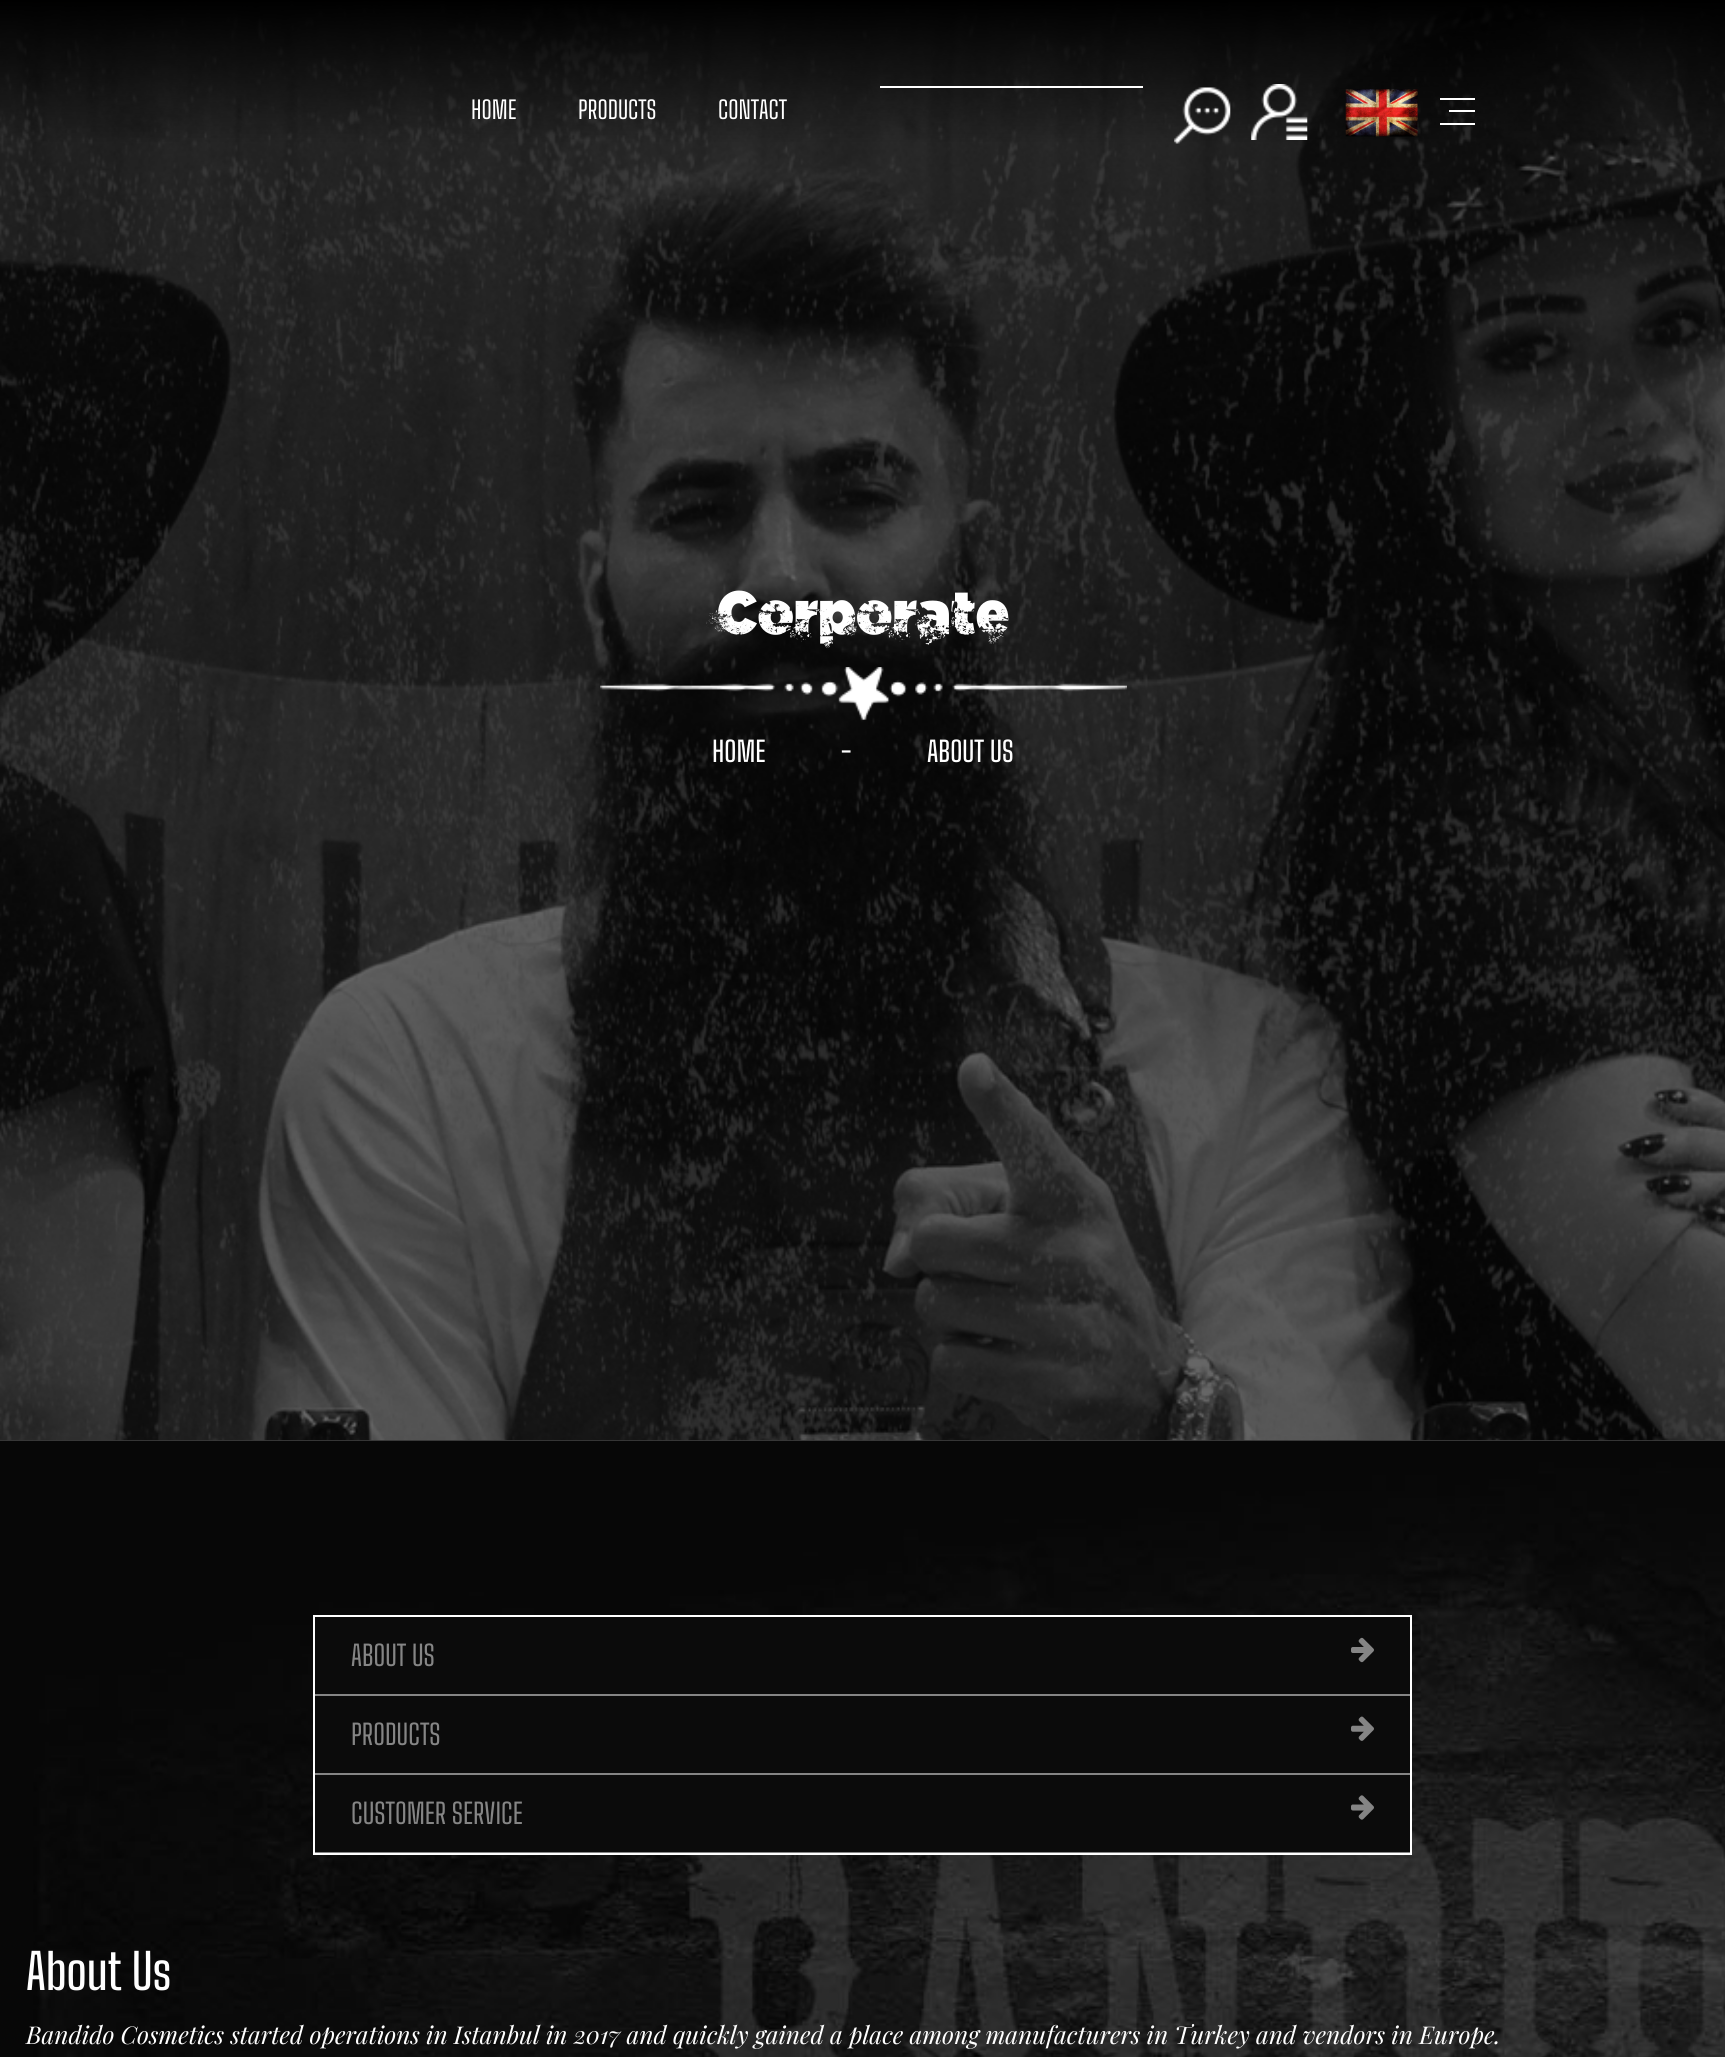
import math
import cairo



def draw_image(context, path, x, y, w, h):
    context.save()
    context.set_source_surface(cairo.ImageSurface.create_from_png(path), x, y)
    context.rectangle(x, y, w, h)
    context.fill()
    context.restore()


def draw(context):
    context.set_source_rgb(1, 1, 1)
    context.paint()
    draw_image(context, "images/4.png", 0, 0, 1725, 1441)
    context.set_source_rgb(1, 1, 1)
    context.rectangle(880, 86, 263, 2)
    context.fill()
    draw_image(context, "images/1.png", 1174, 87, 57, 57)
    draw_image(context, "images/2.png", 1251, 84, 57, 56)
    draw_image(context, "images/3.png", 1345, 89, 73, 48)
    context.rectangle(1440, 98, 35, 2)
    context.fill()
    context.rectangle(1449, 110, 26, 2)
    context.fill()
    context.rectangle(1440, 123, 35, 2)
    context.fill()
    draw_image(context, "images/5.png", 600, 667, 527, 53)
    draw_image(context, "images/6.png", 0, 1440, 1725, 617)
    context.set_source_rgb(11 / 255, 11 / 255, 11 / 255)
    context.rectangle(314, 1616, 1097, 238)
    context.fill_preserve()
    context.set_source_rgb(1, 1, 1)
    context.stroke()
    context.set_source_rgba(1, 1, 1, 0.5)
    context.rectangle(315, 1694, 1096, 2)
    context.fill()
    draw_image(context, "images/7.png", 1351, 1637, 23, 26)
    context.rectangle(315, 1773, 1096, 2)
    context.fill()
    draw_image(context, "images/8.png", 1351, 1716, 23, 25)
    context.rectangle(315, 1852, 1096, 1)
    context.fill()
    draw_image(context, "images/9.png", 1351, 1795, 23, 25)
    context.select_font_face("Big Shoulders Text")
    context.set_font_size(24.5)
    context.set_source_rgb(1, 1, 1)
    context.move_to(471, 119)
    context.show_text("HOME")
    context.move_to(578, 119)
    context.show_text("PRODUCTS")
    context.move_to(718, 119)
    context.show_text("CONTACT")
    context.select_font_face("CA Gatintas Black")
    context.set_font_size(56)
    context.move_to(717, 634)
    context.show_text("Corporate")
    context.select_font_face("Big Shoulders Text Medium")
    context.set_font_size(28)
    context.move_to(712, 762)
    context.show_text("HOME")
    context.move_to(841, 762)
    context.show_text("-")
    context.move_to(927, 762)
    context.show_text("ABOUT US")
    context.select_font_face("Big Shoulders Text")
    context.set_source_rgb(133 / 255, 133 / 255, 133 / 255)
    context.move_to(351, 1666)
    context.show_text("ABOUT US")
    context.move_to(351, 1745)
    context.show_text("PRODUCTS")
    context.move_to(351, 1824)
    context.show_text("CUSTOMER SERVICE")
    context.select_font_face("Big Shoulders Text Medium")
    context.set_font_size(49)
    context.set_source_rgb(1, 1, 1)
    context.move_to(26, 1990)
    context.show_text("About Us")
    context.select_font_face("Playfair Display", cairo.FontSlant.ITALIC)
    context.set_font_size(24.5)
    context.move_to(26, 2044)
    context.show_text("Bandido Cosmetics started operations in Istanbul in 2017 and quickly gained a place among manufacturers in Turkey and vendors in Europe.")


surface = cairo.ImageSurface(cairo.Format.RGB24, 1725, 2057)
context = cairo.Context(surface)
options = cairo.FontOptions()
options.set_hint_metrics(cairo.HintMetrics.OFF)
options.set_hint_style(cairo.HintStyle.NONE)
context.set_font_options(options)
context.set_miter_limit(4)
draw(context)
surface.write_to_png("out.png")
